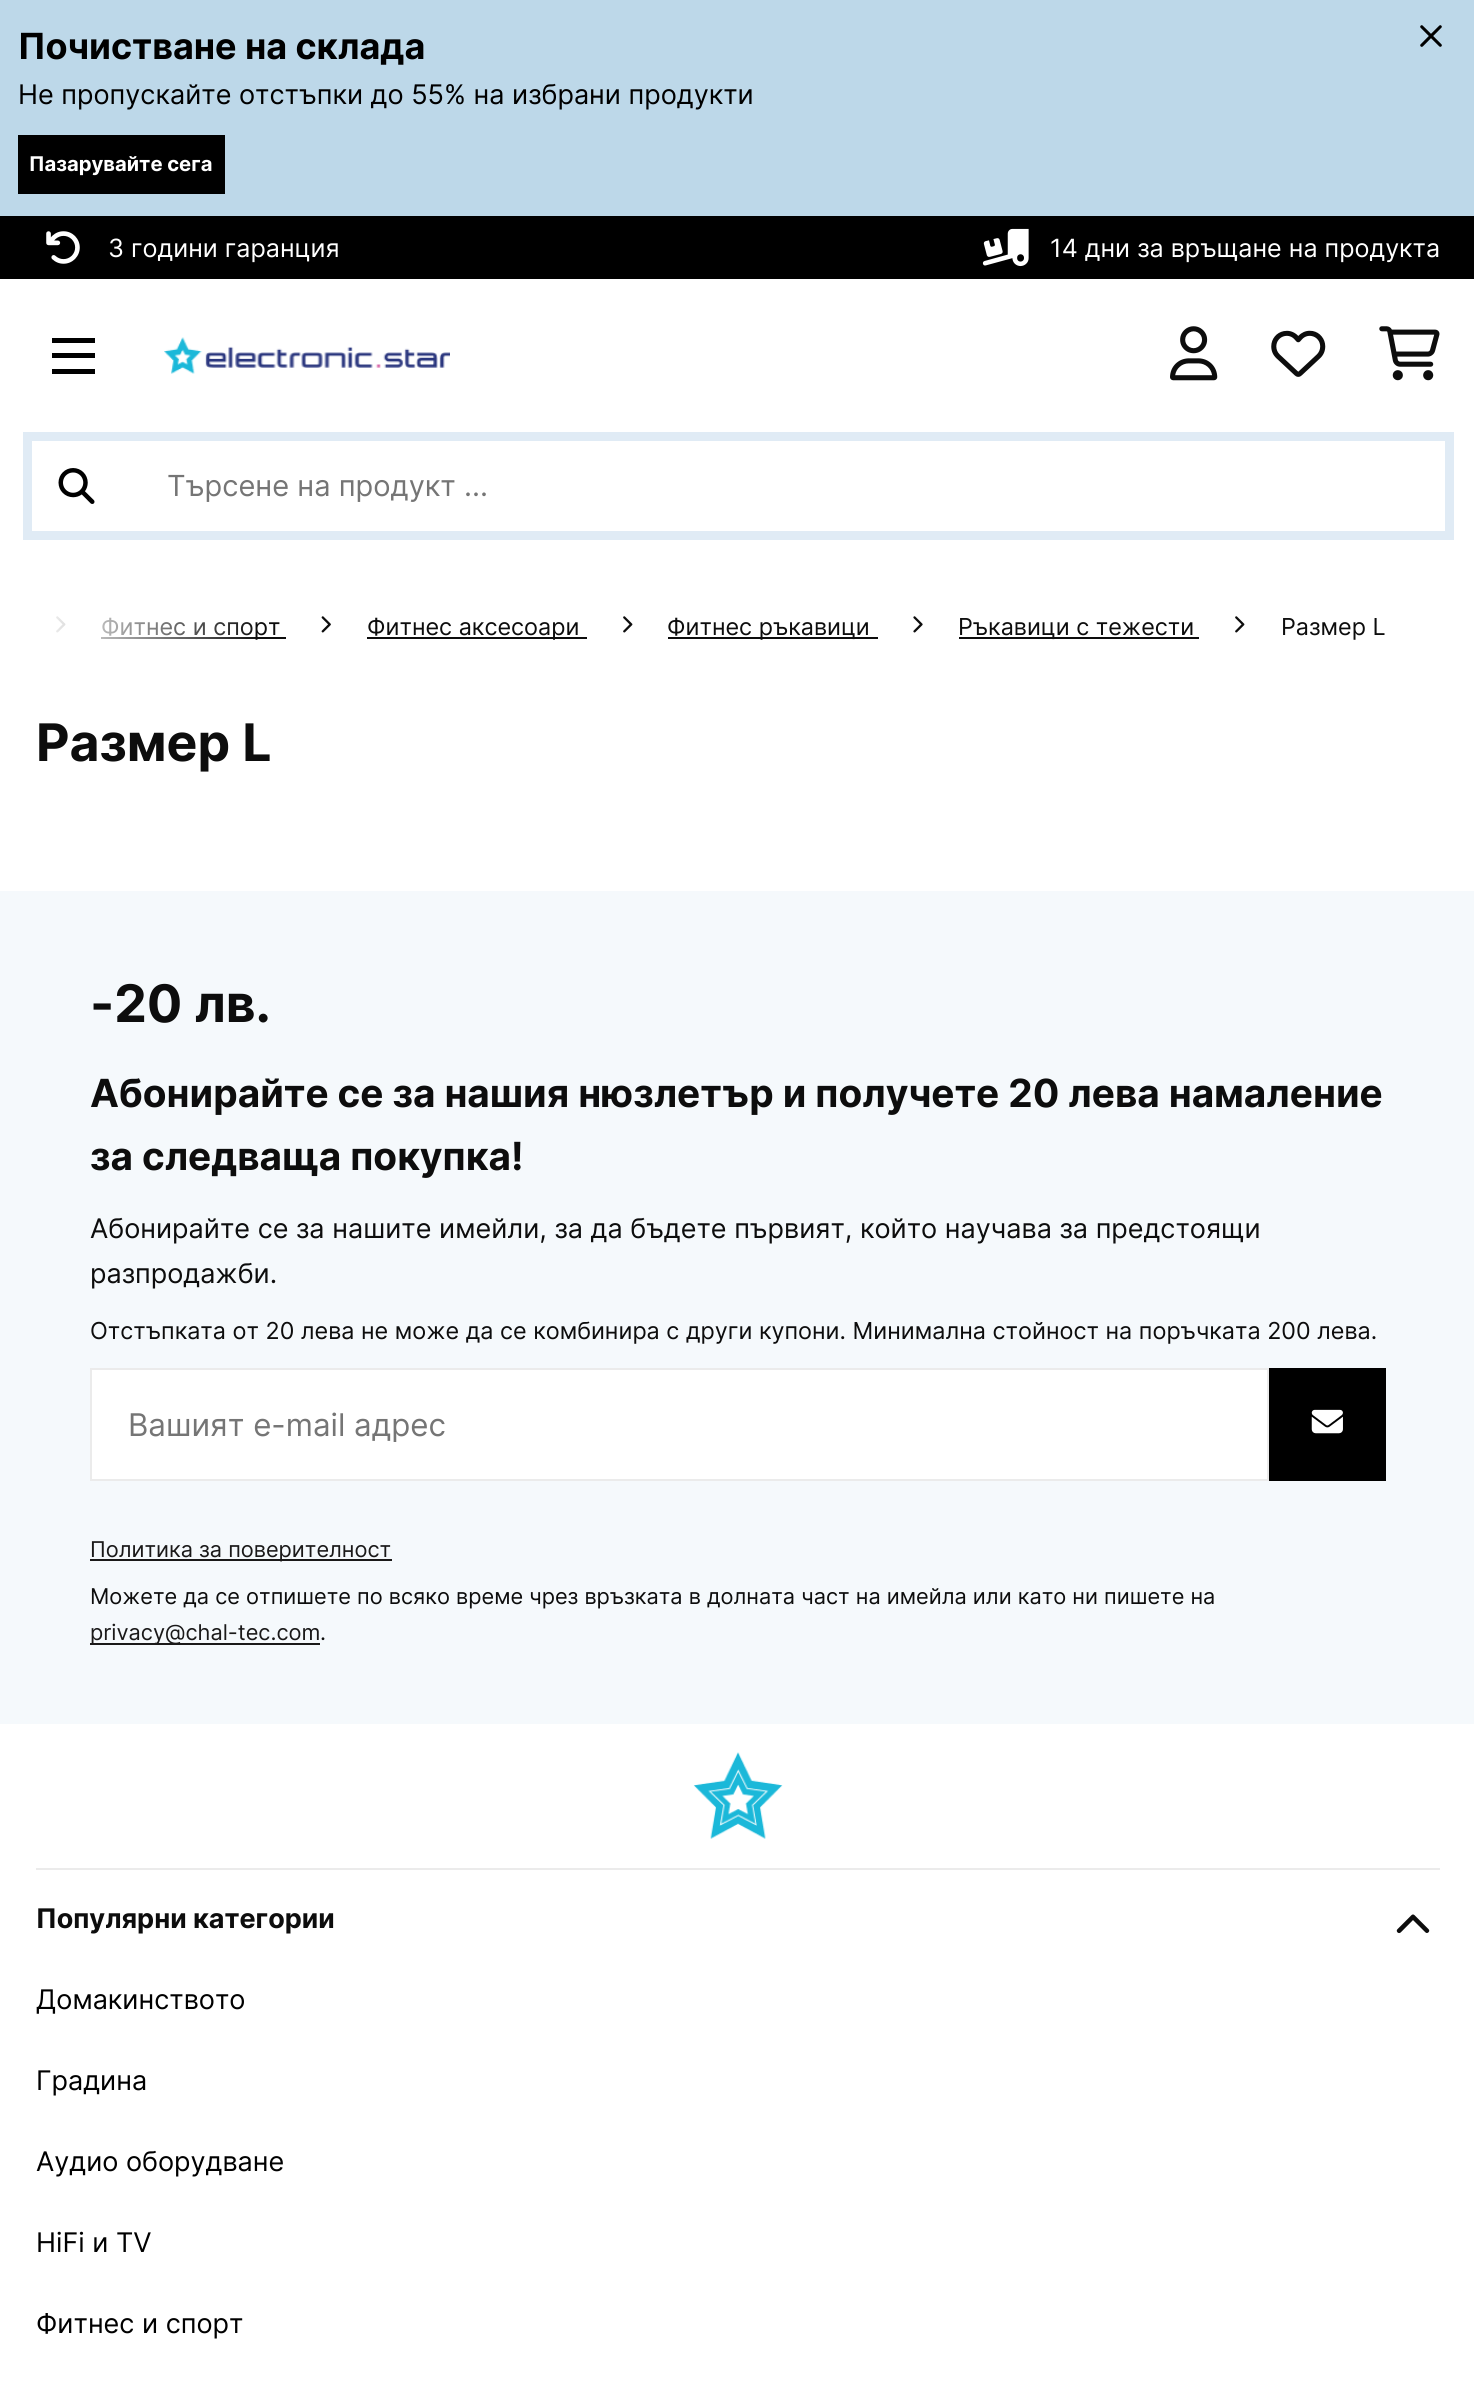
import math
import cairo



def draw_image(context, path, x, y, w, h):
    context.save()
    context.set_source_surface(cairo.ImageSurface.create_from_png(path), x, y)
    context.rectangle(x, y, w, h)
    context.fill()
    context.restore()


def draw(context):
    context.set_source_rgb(1, 1, 1)
    context.paint()
    context.set_source_rgb(189 / 255, 216 / 255, 233 / 255)
    context.rectangle(0, 0, 1474, 216)
    context.fill()
    context.set_source_rgb(0, 0, 0)
    context.rectangle(18, 135, 207, 59)
    context.fill()
    draw_image(context, "images/1.png", 1420, 25, 22, 22)
    context.rectangle(0, 216, 1474, 63)
    context.fill()
    draw_image(context, "images/2.png", 46, 231, 34, 33)
    draw_image(context, "images/3.png", 982, 228, 47, 39)
    context.rectangle(52, 338, 43, 5)
    context.fill()
    context.rectangle(52, 353, 43, 5)
    context.fill()
    context.rectangle(52, 369, 43, 5)
    context.fill()
    draw_image(context, "images/4.png", 164, 337, 286, 37)
    draw_image(context, "images/5.png", 1170, 326, 48, 55)
    draw_image(context, "images/6.png", 1271, 330, 55, 47)
    draw_image(context, "images/7.png", 1379, 326, 61, 55)
    context.rectangle(27.5, 436.5, 1422, 99)
    context.set_source_rgb(224 / 255, 235 / 255, 245 / 255)
    context.set_line_width(9)
    context.stroke()
    draw_image(context, "images/8.png", 58, 468, 37, 36)
    draw_image(context, "images/9.png", 56, 616, 10, 17)
    context.set_source_rgb(13 / 255, 13 / 255, 13 / 255)
    context.rectangle(101, 637, 185, 2)
    context.fill()
    draw_image(context, "images/10.png", 321, 616, 10, 17)
    context.rectangle(367, 637, 220, 2)
    context.fill()
    draw_image(context, "images/9.png", 623, 616, 10, 17)
    context.rectangle(668, 637, 210, 2)
    context.fill()
    draw_image(context, "images/11.png", 913, 616, 10, 17)
    context.rectangle(959, 637, 240, 2)
    context.fill()
    draw_image(context, "images/9.png", 1235, 616, 10, 17)
    context.set_source_rgb(245 / 255, 249 / 255, 252 / 255)
    context.rectangle(0, 891, 1474, 833)
    context.fill()
    context.set_source_rgb(1, 1, 1)
    context.rectangle(91, 1369, 1177, 111)
    context.fill_preserve()
    context.set_source_rgb(235 / 255, 235 / 255, 235 / 255)
    context.set_line_width(2)
    context.stroke()
    context.set_source_rgb(0, 0, 0)
    context.rectangle(1269, 1368, 117, 113)
    context.fill()
    draw_image(context, "images/12.png", 1311, 1409, 32, 25)
    context.set_source_rgb(26 / 255, 25 / 255, 25 / 255)
    context.rectangle(90, 1559, 302, 2)
    context.fill()
    context.rectangle(90, 1643, 230, 2)
    context.fill()
    draw_image(context, "images/13.png", 693, 1752, 90, 87)
    context.set_source_rgb(235 / 255, 235 / 255, 235 / 255)
    context.rectangle(36, 1868, 1404, 2)
    context.fill()
    draw_image(context, "images/14.png", 1396, 1914, 34, 20)
    context.select_font_face("Inter", cairo.FontSlant.NORMAL, cairo.FontWeight.BOLD)
    context.set_font_size(36)
    context.set_source_rgb(0, 0, 0)
    context.move_to(18, 59)
    context.show_text("Почистване на склада")
    context.select_font_face("Inter")
    context.set_font_size(27)
    context.move_to(18, 104)
    context.show_text("Не пропускайте отстъпки до 55% на избрани продукти")
    context.select_font_face("Inter", cairo.FontSlant.NORMAL, cairo.FontWeight.BOLD)
    context.set_font_size(20.25)
    context.set_source_rgb(1, 1, 1)
    context.move_to(29, 171)
    context.show_text("Пазарувайте сега")
    context.select_font_face("Inter")
    context.set_font_size(25.1)
    context.move_to(108, 257)
    context.show_text("3 години гаранция")
    context.move_to(1050, 257)
    context.show_text("14 дни за връщане на продукта")
    context.set_font_size(29)
    context.set_source_rgb(117 / 255, 117 / 255, 117 / 255)
    context.move_to(167, 496)
    context.show_text("Търсене на продукт ...")
    context.set_font_size(23.35)
    context.set_source_rgb(13 / 255, 13 / 255, 13 / 255)
    context.move_to(101, 635)
    context.show_text("Фитнес и спорт")
    gradient = cairo.LinearGradient(36, 621, 261, 621)
    gradient.add_color_stop_rgba(0, 1, 1, 1, 1)
    gradient.add_color_stop_rgba(1, 1, 1, 1, 0)
    context.set_source(gradient)
    context.rectangle(56, 616, 200, 24)
    context.fill()
    context.set_source_rgb(13 / 255, 13 / 255, 13 / 255)
    context.move_to(367, 635)
    context.show_text("Фитнес аксесоари")
    context.move_to(667, 635)
    context.show_text("Фитнес ръкавици")
    context.move_to(958, 635)
    context.show_text("Ръкавици с тежести")
    context.move_to(1281, 635)
    context.show_text("Размер L")
    context.select_font_face("Inter", cairo.FontSlant.NORMAL, cairo.FontWeight.BOLD)
    context.set_font_size(51.75)
    context.move_to(36, 761)
    context.show_text("Размер L")
    context.move_to(90, 1022)
    context.show_text("-20 лв.")
    context.set_font_size(38.75)
    context.move_to(90, 1107)
    context.show_text("Абонирайте се за нашия нюзлетър и получете 20 лева намаление")
    context.move_to(90, 1170)
    context.show_text("за следваща покупка!")
    context.select_font_face("Inter")
    context.set_font_size(27)
    context.move_to(90, 1238)
    context.show_text("Абонирайте се за нашите имейли, за да бъдете първият, който научава за предстоящи")
    context.move_to(90, 1283)
    context.show_text("разпродажби.")
    context.set_font_size(23.35)
    context.move_to(90, 1339)
    context.show_text("Отстъпката от 20 лева не може да се комбинира с други купони. Минимална стойност на поръчката 200 лева.")
    context.save()
    context.rectangle(128, 1406, 1103, 36)
    context.clip()
    context.set_font_size(31.25)
    context.set_source_rgb(117 / 255, 117 / 255, 117 / 255)
    context.move_to(128, 1436)
    context.show_text("Вашият e-mail адрес")
    context.restore()
    context.set_font_size(21.73)
    context.set_source_rgb(26 / 255, 25 / 255, 25 / 255)
    context.move_to(90, 1557)
    context.show_text("Политика за поверителност")
    context.set_source_rgb(13 / 255, 13 / 255, 13 / 255)
    context.move_to(90, 1604)
    context.show_text("Можете да се отпишете по всяко време чрез връзката в долната част на имейла или като ни пишете на")
    context.set_source_rgb(26 / 255, 25 / 255, 25 / 255)
    context.move_to(90, 1640)
    context.show_text("privacy@chal-tec.com")
    context.set_source_rgb(13 / 255, 13 / 255, 13 / 255)
    context.move_to(320, 1640)
    context.show_text(".")
    context.select_font_face("Inter", cairo.FontSlant.NORMAL, cairo.FontWeight.BOLD)
    context.set_font_size(27)
    context.move_to(36, 1928)
    context.show_text("Популярни категории")
    context.select_font_face("Inter")
    context.set_source_rgb(0, 0, 0)
    context.move_to(36, 2009)
    context.show_text("Домакинството")
    context.move_to(36, 2090)
    context.show_text("Градина")
    context.move_to(36, 2171)
    context.show_text("Аудио оборудване")
    context.move_to(36, 2252)
    context.show_text("HiFi и TV")
    context.move_to(36, 2333)
    context.show_text("Фитнес и спорт")


surface = cairo.ImageSurface(cairo.Format.RGB24, 1474, 2398)
context = cairo.Context(surface)
options = cairo.FontOptions()
options.set_hint_metrics(cairo.HintMetrics.OFF)
options.set_hint_style(cairo.HintStyle.NONE)
context.set_font_options(options)
context.set_miter_limit(4)
draw(context)
surface.write_to_png("out.png")
